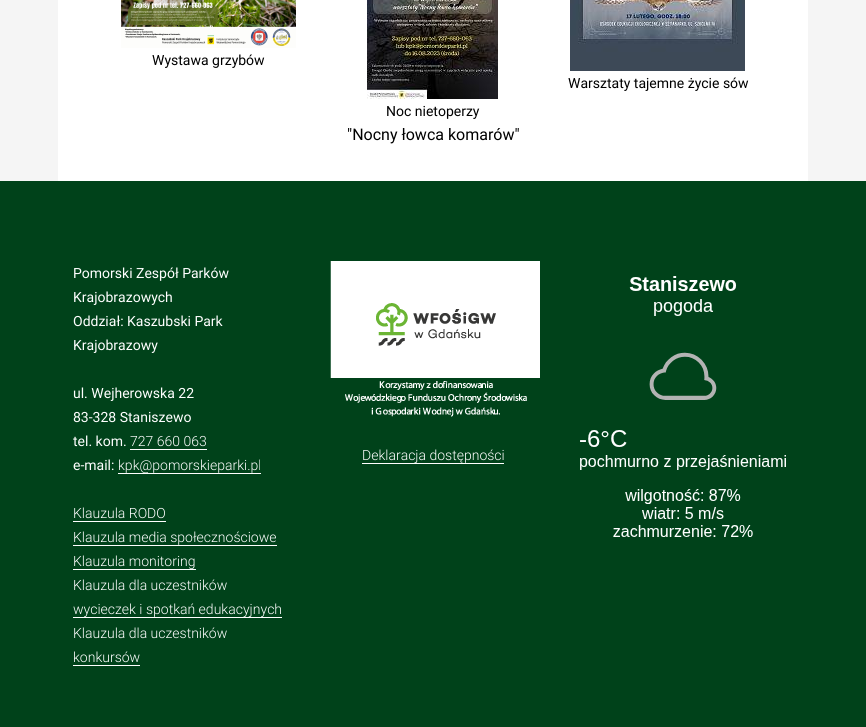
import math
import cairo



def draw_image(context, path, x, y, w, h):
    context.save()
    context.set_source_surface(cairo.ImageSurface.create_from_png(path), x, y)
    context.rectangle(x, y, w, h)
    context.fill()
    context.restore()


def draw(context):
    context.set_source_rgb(245 / 255, 245 / 255, 245 / 255)
    context.paint()
    context.set_source_rgb(1, 1, 1)
    context.rectangle(58, 0, 750, 181)
    context.fill()
    draw_image(context, "images/1.png", 121, 0, 175, 48)
    draw_image(context, "images/2.png", 570, 0, 175, 71)
    draw_image(context, "images/3.png", 367, 0, 131, 99)
    context.set_source_rgb(0, 66 / 255, 26 / 255)
    context.rectangle(0, 181, 866, 546)
    context.fill()
    context.set_source_rgb(1, 1, 1)
    context.rectangle(130, 449, 77, 1)
    context.fill()
    context.rectangle(118, 473, 143, 1)
    context.fill()
    context.rectangle(73, 521, 93, 1)
    context.fill()
    context.rectangle(73, 545, 204, 1)
    context.fill()
    context.rectangle(73, 569, 123, 1)
    context.fill()
    context.rectangle(73, 617, 209, 1)
    context.fill()
    context.rectangle(73, 665, 67, 1)
    context.fill()
    draw_image(context, "images/4.png", 330, 261, 210, 156)
    context.rectangle(362, 463, 142, 1)
    context.fill()
    draw_image(context, "images/5.png", 580, 276, 206, 261)
    context.select_font_face("Roboto")
    context.set_font_size(14)
    context.set_source_rgb(0, 0, 0)
    context.move_to(152, 65)
    context.show_text("Wystawa grzybów")
    context.move_to(568, 88)
    context.show_text("Warsztaty tajemne życie sów")
    context.move_to(386, 116)
    context.show_text("Noc nietoperzy")
    context.set_font_size(16)
    context.move_to(347, 140)
    context.show_text("\"Nocny łowca komarów\"")
    context.set_font_size(14)
    context.set_source_rgb(1, 1, 1)
    context.move_to(73, 278)
    context.show_text("Pomorski Zespół Parków")
    context.move_to(73, 302)
    context.show_text("Krajobrazowych")
    context.move_to(73, 326)
    context.show_text("Oddział: Kaszubski Park")
    context.move_to(73, 350)
    context.show_text("Krajobrazowy")
    context.move_to(73, 398)
    context.show_text("ul. Wejherowska 22")
    context.move_to(73, 422)
    context.show_text("83-328 Staniszewo")
    context.move_to(73, 446)
    context.show_text("tel. kom.")
    context.select_font_face("Roboto Light")
    context.move_to(130, 446)
    context.show_text("727 660 063")
    context.select_font_face("Roboto")
    context.move_to(73, 470)
    context.show_text("e-mail:")
    context.select_font_face("Roboto Light")
    context.move_to(118, 470)
    context.show_text("kpk@pomorskieparki.pl")
    context.move_to(73, 518)
    context.show_text("Klauzula RODO")
    context.move_to(73, 542)
    context.show_text("Klauzula media społecznościowe")
    context.move_to(73, 566)
    context.show_text("Klauzula monitoring")
    context.move_to(73, 590)
    context.show_text("Klauzula dla uczestników")
    context.move_to(73, 614)
    context.show_text("wycieczek i spotkań edukacyjnych")
    context.move_to(73, 638)
    context.show_text("Klauzula dla uczestników")
    context.move_to(73, 662)
    context.show_text("konkursów")
    context.move_to(362, 460)
    context.show_text("Deklaracja dostępności")


surface = cairo.ImageSurface(cairo.Format.RGB24, 866, 727)
context = cairo.Context(surface)
options = cairo.FontOptions()
options.set_hint_metrics(cairo.HintMetrics.OFF)
options.set_hint_style(cairo.HintStyle.NONE)
context.set_font_options(options)
context.set_miter_limit(4)
draw(context)
surface.write_to_png("out.png")
